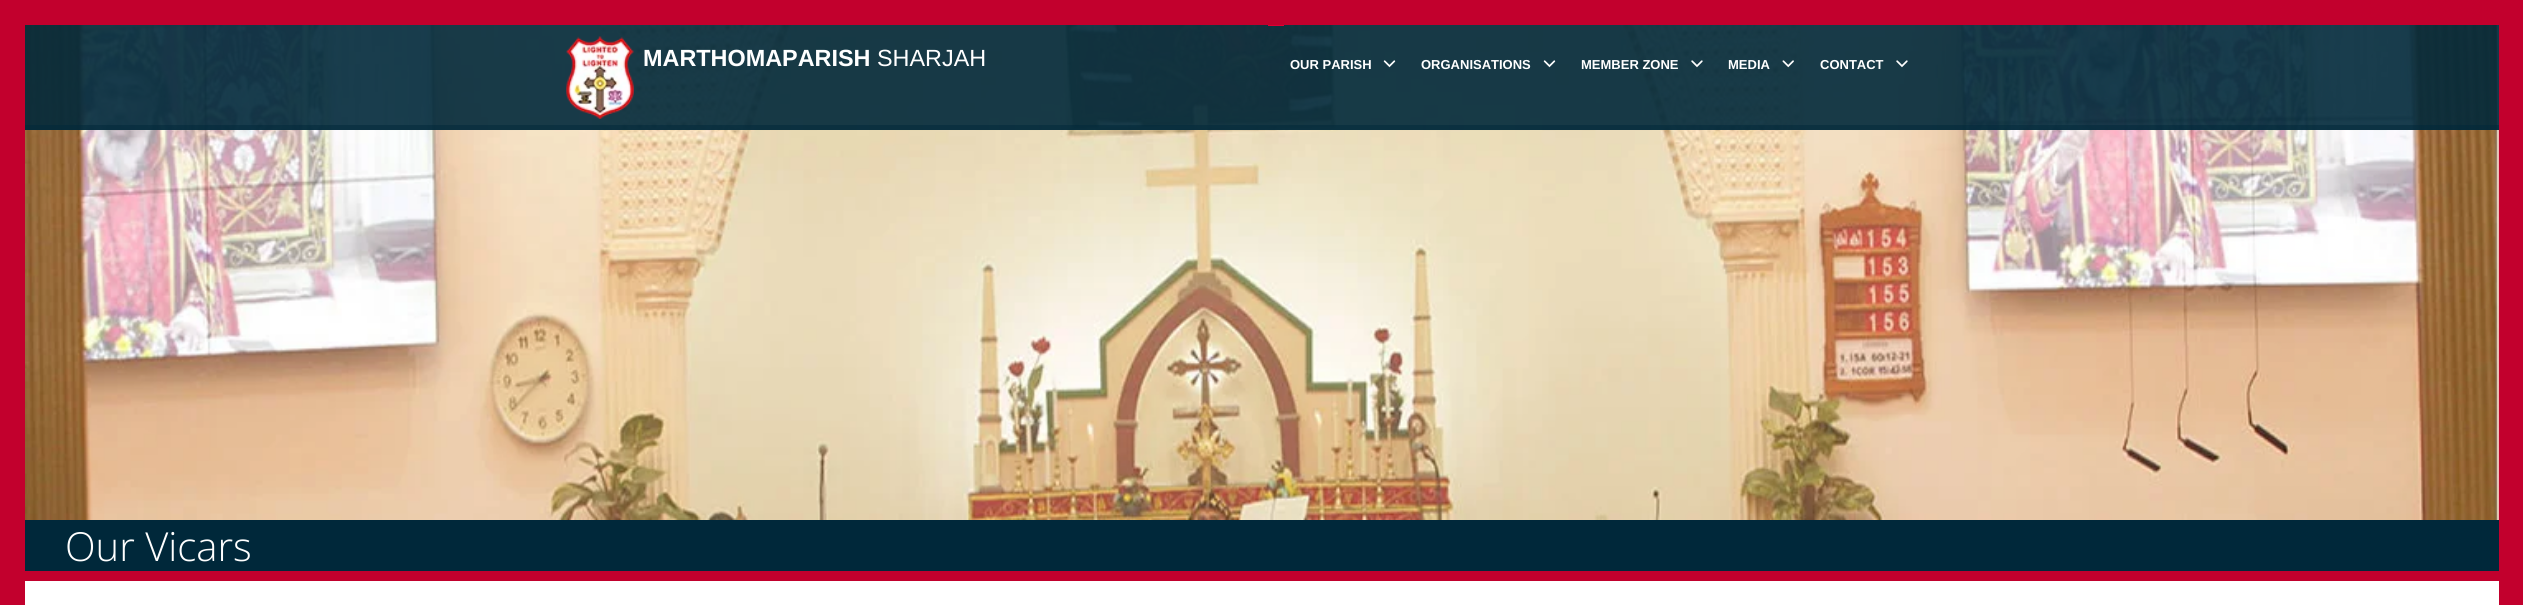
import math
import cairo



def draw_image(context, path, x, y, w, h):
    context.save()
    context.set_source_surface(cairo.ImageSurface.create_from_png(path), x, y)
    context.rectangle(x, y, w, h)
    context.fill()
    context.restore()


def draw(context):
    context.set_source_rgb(194 / 255, 0, 45 / 255)
    context.paint()
    draw_image(context, "images/7.png", 25, 25, 2474, 495)
    context.set_source_rgba(0, 40 / 255, 58 / 255, 0.9)
    context.rectangle(25, 25, 2474, 105)
    context.fill()
    context.set_source_rgba(0, 40 / 255, 58 / 255, 0.5)
    context.rectangle(25, 125, 2474, 5)
    context.fill()
    draw_image(context, "images/1.png", 566, 36, 68, 83)
    context.set_source_rgb(222 / 255, 0, 52 / 255)
    context.rectangle(1268, 25, 16, 1)
    context.fill()
    draw_image(context, "images/2.png", 1383, 60, 13, 8)
    draw_image(context, "images/3.png", 1543, 60, 13, 8)
    draw_image(context, "images/4.png", 1691, 60, 12, 8)
    draw_image(context, "images/5.png", 1782, 60, 12, 8)
    draw_image(context, "images/6.png", 1896, 60, 12, 8)
    context.set_source_rgb(0, 40 / 255, 58 / 255)
    context.rectangle(25, 520, 2474, 51)
    context.fill()
    context.set_source_rgb(1, 1, 1)
    context.rectangle(25, 581, 2474, 24)
    context.fill()
    context.select_font_face("Liberation Sans", cairo.FontSlant.NORMAL, cairo.FontWeight.BOLD)
    context.set_font_size(23.4)
    context.move_to(643, 66)
    context.show_text("MARTHOMAPARISH")
    context.select_font_face("Liberation Sans")
    context.move_to(877, 66)
    context.show_text("SHARJAH")
    context.select_font_face("Liberation Sans", cairo.FontSlant.NORMAL, cairo.FontWeight.BOLD)
    context.set_font_size(13)
    context.move_to(1290, 69)
    context.show_text("OUR PARISH")
    context.move_to(1421, 69)
    context.show_text("ORGANISATIONS")
    context.move_to(1581, 69)
    context.show_text("MEMBER ZONE")
    context.move_to(1728, 69)
    context.show_text("MEDIA")
    context.move_to(1820, 69)
    context.show_text("CONTACT")
    context.select_font_face("Open Sans Light")
    context.set_font_size(40)
    context.move_to(65, 561)
    context.show_text("Our Vicars")


surface = cairo.ImageSurface(cairo.Format.RGB24, 2523, 605)
context = cairo.Context(surface)
options = cairo.FontOptions()
options.set_hint_metrics(cairo.HintMetrics.OFF)
options.set_hint_style(cairo.HintStyle.NONE)
context.set_font_options(options)
context.set_miter_limit(4)
draw(context)
surface.write_to_png("out.png")
